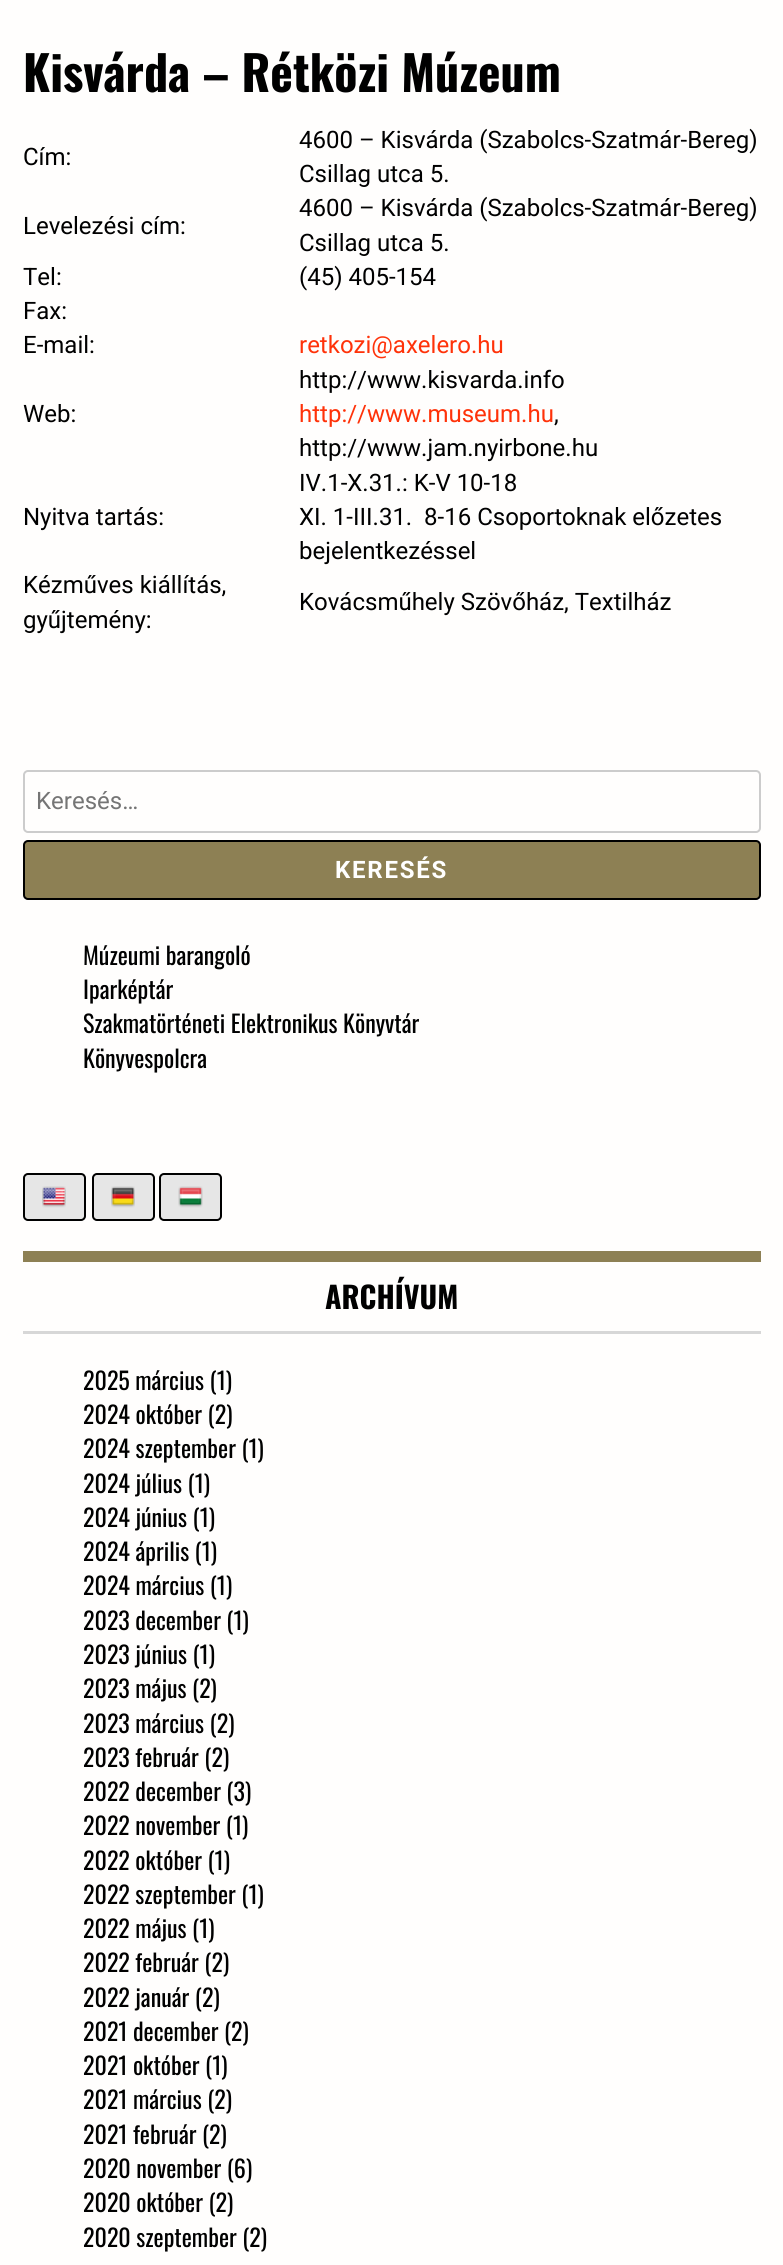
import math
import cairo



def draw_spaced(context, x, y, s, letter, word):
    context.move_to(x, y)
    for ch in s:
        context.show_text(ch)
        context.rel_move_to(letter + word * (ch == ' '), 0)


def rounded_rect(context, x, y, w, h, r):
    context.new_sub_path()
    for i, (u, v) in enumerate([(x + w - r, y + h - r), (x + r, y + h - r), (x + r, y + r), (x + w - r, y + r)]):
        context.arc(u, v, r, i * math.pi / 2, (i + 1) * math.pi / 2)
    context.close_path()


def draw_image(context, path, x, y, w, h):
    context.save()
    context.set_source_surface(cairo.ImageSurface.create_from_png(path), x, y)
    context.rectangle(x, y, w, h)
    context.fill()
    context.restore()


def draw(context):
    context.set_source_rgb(1, 254 / 255, 253 / 255)
    context.paint()
    rounded_rect(context, 24, 771, 736, 61, 4)
    context.set_source_rgb(204 / 255, 204 / 255, 204 / 255)
    context.stroke()
    context.set_source_rgb(141 / 255, 128 / 255, 84 / 255)
    rounded_rect(context, 24, 841, 736, 58, 4)
    context.fill_preserve()
    context.set_source_rgb(0, 0, 0)
    context.stroke()
    context.set_source_rgb(230 / 255, 230 / 255, 230 / 255)
    rounded_rect(context, 24, 1174, 61, 46, 4)
    context.fill_preserve()
    context.set_source_rgb(0, 0, 0)
    context.stroke()
    draw_image(context, "images/1.png", 42, 1186, 24, 22)
    context.set_source_rgb(230 / 255, 230 / 255, 230 / 255)
    rounded_rect(context, 93, 1174, 61, 46, 4)
    context.fill_preserve()
    context.set_source_rgb(0, 0, 0)
    context.stroke()
    draw_image(context, "images/2.png", 111, 1186, 24, 22)
    context.set_source_rgb(230 / 255, 230 / 255, 230 / 255)
    rounded_rect(context, 160, 1174, 61, 46, 4)
    context.fill_preserve()
    context.set_source_rgb(0, 0, 0)
    context.stroke()
    draw_image(context, "images/3.png", 178, 1186, 25, 22)
    context.set_source_rgb(141 / 255, 128 / 255, 84 / 255)
    context.rectangle(23, 1251, 738, 11)
    context.fill()
    context.set_source_rgb(215 / 255, 215 / 255, 215 / 255)
    context.rectangle(23, 1331, 738, 3)
    context.fill()
    context.select_font_face("Oswald", cairo.FontSlant.NORMAL, cairo.FontWeight.BOLD)
    context.set_font_size(48)
    context.set_source_rgb(0, 0, 0)
    context.move_to(23, 92)
    context.show_text("Kisvárda – Rétközi Múzeum")
    context.select_font_face("Roboto")
    context.set_font_size(24)
    context.move_to(23, 165)
    context.show_text("Cím:")
    context.move_to(299, 148)
    context.show_text("4600 – Kisvárda (Szabolcs-Szatmár-Bereg)")
    context.move_to(299, 182)
    context.show_text("Csillag utca 5.")
    context.move_to(23, 234)
    context.show_text("Levelezési cím:")
    context.move_to(299, 216)
    context.show_text("4600 – Kisvárda (Szabolcs-Szatmár-Bereg)")
    context.move_to(299, 251)
    context.show_text("Csillag utca 5.")
    context.move_to(23, 285)
    context.show_text("Tel:")
    context.move_to(299, 285)
    context.show_text("(45) 405-154")
    context.move_to(23, 319)
    context.show_text("Fax:")
    context.move_to(23, 353)
    context.show_text("E-mail:")
    context.set_source_rgb(1, 50 / 255, 9 / 255)
    context.move_to(299, 353)
    context.show_text("retkozi@axelero.hu")
    context.set_source_rgb(0, 0, 0)
    context.move_to(23, 422)
    context.show_text("Web:")
    context.move_to(299, 388)
    context.show_text("http://www.kisvarda.info")
    context.set_source_rgb(1, 50 / 255, 9 / 255)
    context.move_to(299, 422)
    context.show_text("http://www.museum.hu")
    context.set_source_rgb(0, 0, 0)
    context.move_to(554, 422)
    context.show_text(",")
    context.move_to(299, 456)
    context.show_text("http://www.jam.nyirbone.hu")
    context.move_to(23, 525)
    context.show_text("Nyitva tartás:")
    context.move_to(299, 491)
    context.show_text("IV.1-X.31.: K-V 10-18")
    context.move_to(299, 525)
    context.show_text("XI. 1-III.31.  8-16 Csoportoknak előzetes")
    context.move_to(299, 559)
    context.show_text("bejelentkezéssel")
    context.move_to(23, 593)
    context.show_text("Kézműves kiállítás,")
    context.move_to(23, 628)
    context.show_text("gyűjtemény:")
    context.move_to(299, 610)
    context.show_text("Kovácsműhely Szövőház, Textilház")
    context.set_source_rgb(117 / 255, 117 / 255, 117 / 255)
    context.move_to(36, 809)
    context.show_text("Keresés…")
    context.select_font_face("Roboto", cairo.FontSlant.NORMAL, cairo.FontWeight.BOLD)
    context.set_source_rgb(1, 1, 1)
    draw_spaced(context, 335, 878, "KERESÉS", 1.75, 0)
    context.select_font_face("Oswald")
    context.set_source_rgb(0, 0, 0)
    context.move_to(83, 965)
    context.show_text("Múzeumi barangoló")
    context.move_to(83, 999)
    context.show_text("Iparképtár")
    context.move_to(83, 1033)
    context.show_text("Szakmatörténeti Elektronikus Könyvtár")
    context.move_to(83, 1068)
    context.show_text("Könyvespolcra")
    context.select_font_face("Oswald", cairo.FontSlant.NORMAL, cairo.FontWeight.BOLD)
    context.set_font_size(30)
    context.move_to(325, 1309)
    context.show_text("ARCHÍVUM")
    context.select_font_face("Oswald")
    context.set_font_size(24)
    context.move_to(83, 1390)
    context.show_text("2025 március (1)")
    context.move_to(83, 1424)
    context.show_text("2024 október (2)")
    context.move_to(83, 1458)
    context.show_text("2024 szeptember (1)")
    context.move_to(83, 1493)
    context.show_text("2024 július (1)")
    context.move_to(83, 1527)
    context.show_text("2024 június (1)")
    context.move_to(83, 1561)
    context.show_text("2024 április (1)")
    context.move_to(83, 1595)
    context.show_text("2024 március (1)")
    context.move_to(83, 1630)
    context.show_text("2023 december (1)")
    context.move_to(83, 1664)
    context.show_text("2023 június (1)")
    context.move_to(83, 1698)
    context.show_text("2023 május (2)")
    context.move_to(83, 1733)
    context.show_text("2023 március (2)")
    context.move_to(83, 1767)
    context.show_text("2023 február (2)")
    context.move_to(83, 1801)
    context.show_text("2022 december (3)")
    context.move_to(83, 1835)
    context.show_text("2022 november (1)")
    context.move_to(83, 1870)
    context.show_text("2022 október (1)")
    context.move_to(83, 1904)
    context.show_text("2022 szeptember (1)")
    context.move_to(83, 1938)
    context.show_text("2022 május (1)")
    context.move_to(83, 1972)
    context.show_text("2022 február (2)")
    context.move_to(83, 2007)
    context.show_text("2022 január (2)")
    context.move_to(83, 2041)
    context.show_text("2021 december (2)")
    context.move_to(83, 2075)
    context.show_text("2021 október (1)")
    context.move_to(83, 2109)
    context.show_text("2021 március (2)")
    context.move_to(83, 2144)
    context.show_text("2021 február (2)")
    context.move_to(83, 2178)
    context.show_text("2020 november (6)")
    context.move_to(83, 2212)
    context.show_text("2020 október (2)")
    context.move_to(83, 2247)
    context.show_text("2020 szeptember (2)")


surface = cairo.ImageSurface(cairo.Format.RGB24, 783, 2265)
context = cairo.Context(surface)
options = cairo.FontOptions()
options.set_hint_metrics(cairo.HintMetrics.OFF)
options.set_hint_style(cairo.HintStyle.NONE)
context.set_font_options(options)
context.set_miter_limit(4)
draw(context)
surface.write_to_png("out.png")
